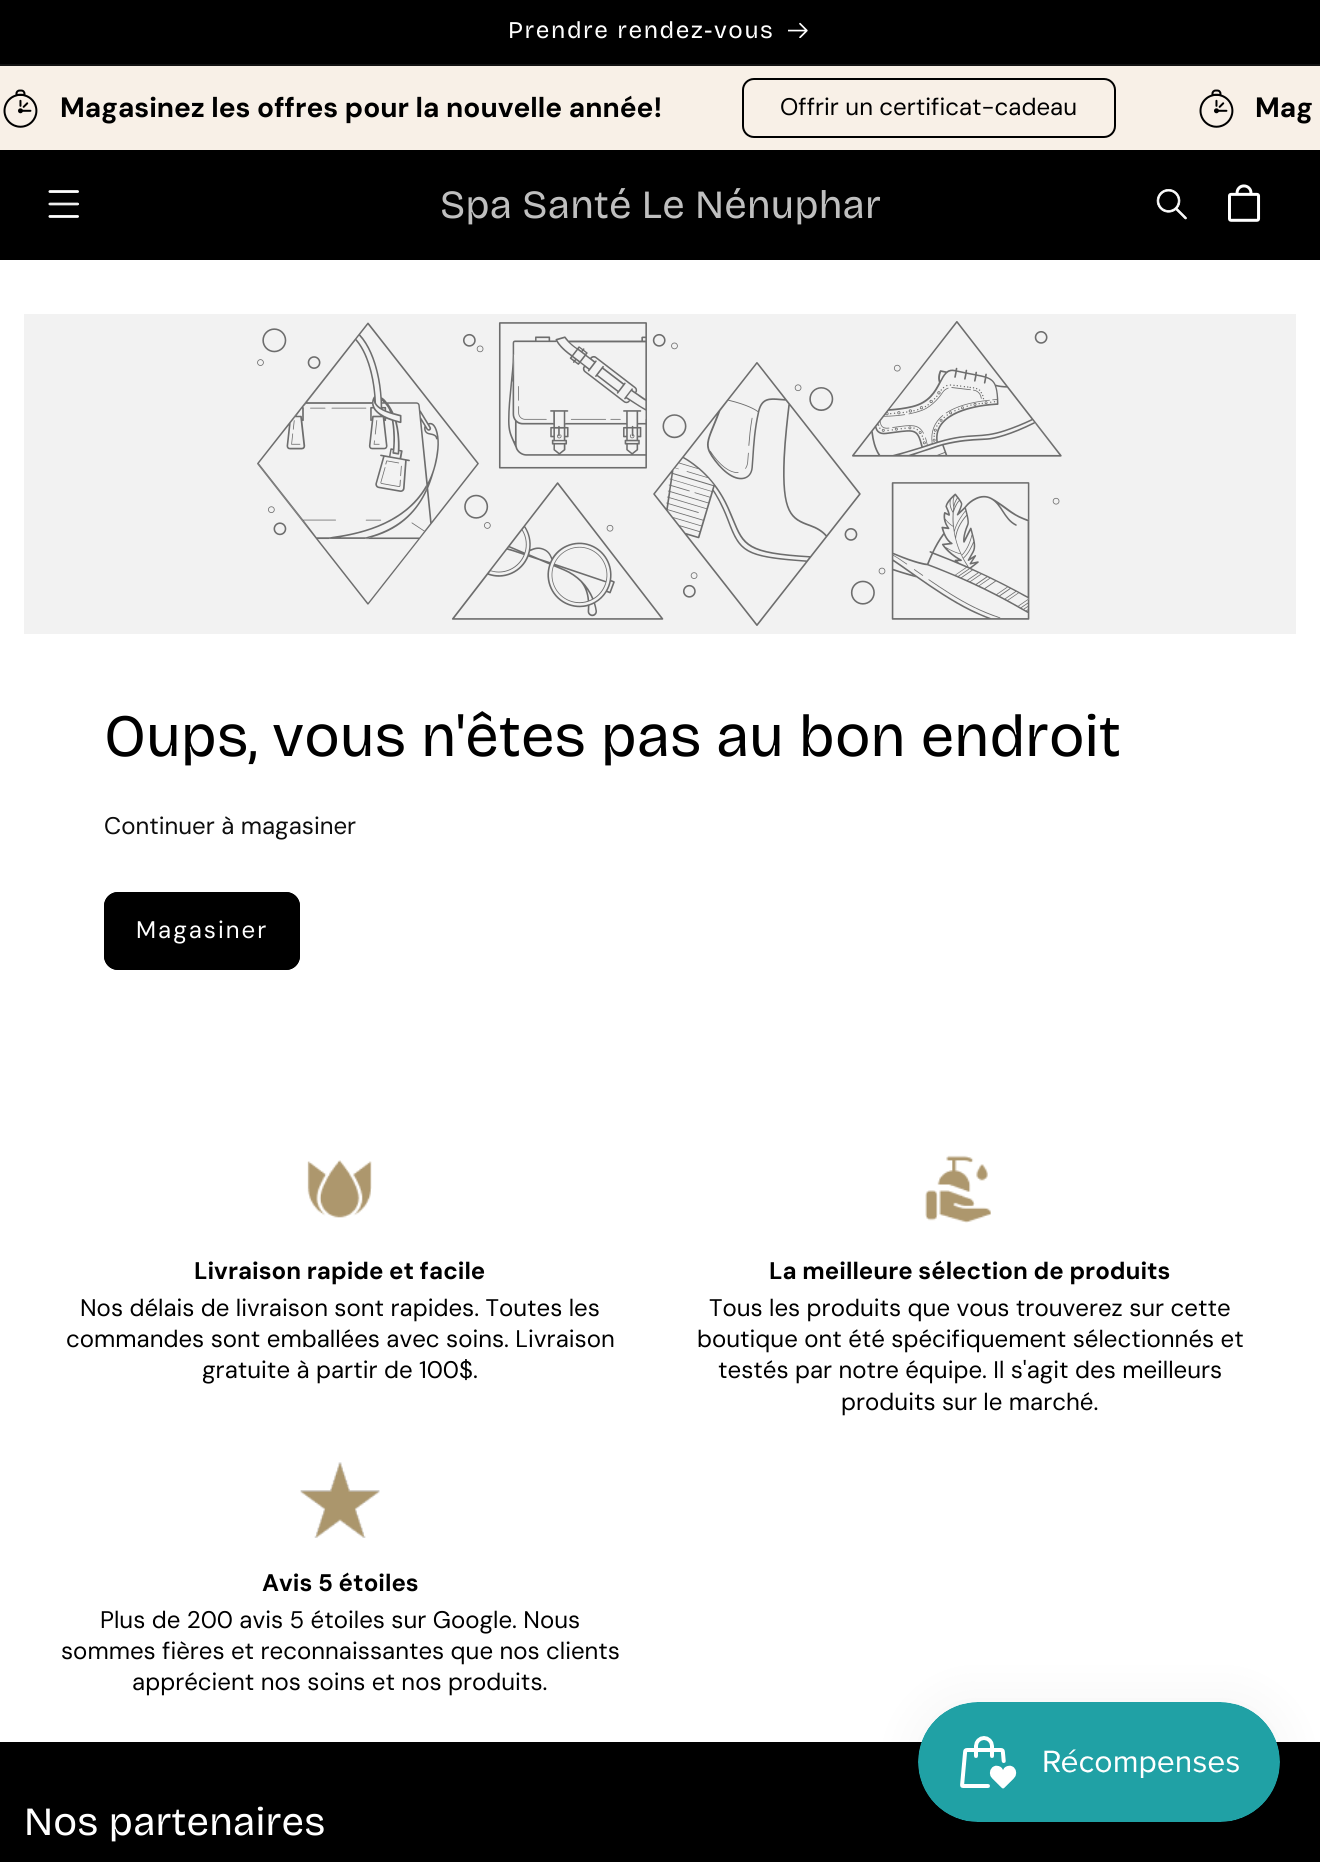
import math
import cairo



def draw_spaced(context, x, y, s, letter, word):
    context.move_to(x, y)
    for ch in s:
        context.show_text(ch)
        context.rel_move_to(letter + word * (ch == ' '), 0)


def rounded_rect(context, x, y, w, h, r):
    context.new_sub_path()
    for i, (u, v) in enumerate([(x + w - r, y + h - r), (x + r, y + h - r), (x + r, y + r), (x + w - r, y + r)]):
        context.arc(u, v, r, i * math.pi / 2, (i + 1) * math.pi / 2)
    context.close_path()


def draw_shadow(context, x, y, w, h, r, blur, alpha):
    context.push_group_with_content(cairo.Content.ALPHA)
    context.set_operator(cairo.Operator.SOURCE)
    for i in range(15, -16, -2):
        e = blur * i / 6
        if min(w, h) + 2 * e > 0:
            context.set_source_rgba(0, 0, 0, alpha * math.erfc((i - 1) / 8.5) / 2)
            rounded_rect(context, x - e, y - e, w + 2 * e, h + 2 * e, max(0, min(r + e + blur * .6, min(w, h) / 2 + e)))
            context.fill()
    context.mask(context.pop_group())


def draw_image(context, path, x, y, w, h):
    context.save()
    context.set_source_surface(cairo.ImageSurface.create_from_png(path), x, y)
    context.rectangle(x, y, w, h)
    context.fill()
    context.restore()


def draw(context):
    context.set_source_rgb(1, 1, 1)
    context.paint()
    context.set_source_rgb(0, 0, 0)
    context.rectangle(0, 0, 1320, 64)
    context.fill()
    context.set_source_rgb(20 / 255, 20 / 255, 20 / 255)
    context.rectangle(0, 64, 1320, 2)
    context.fill()
    draw_image(context, "images/1.png", 788, 22, 20, 16)
    context.set_source_rgb(248 / 255, 240 / 255, 231 / 255)
    context.rectangle(0, 66, 1320, 84)
    context.fill()
    draw_image(context, "images/2.png", 3, 89, 35, 39)
    rounded_rect(context, 743, 79, 372, 58, 11)
    context.set_source_rgb(0, 0, 0)
    context.stroke()
    draw_image(context, "images/2.png", 1199, 89, 35, 39)
    context.rectangle(0, 150, 1320, 110)
    context.fill()
    draw_image(context, "images/3.png", 48, 190, 31, 28)
    draw_image(context, "images/4.png", 1156, 189, 31, 31)
    draw_image(context, "images/5.png", 1228, 184, 33, 38)
    context.set_source_rgb(242 / 255, 242 / 255, 242 / 255)
    context.rectangle(24, 314, 1272, 320)
    context.fill()
    draw_image(context, "images/6.png", 257, 321, 805, 305)
    context.set_source_rgb(0, 0, 0)
    rounded_rect(context, 104, 892, 196, 78, 14)
    context.fill()
    rounded_rect(context, 105, 893, 194, 76, 13)
    context.stroke()
    draw_image(context, "images/7.png", 307, 1160, 65, 58)
    draw_image(context, "images/8.png", 925, 1155, 66, 68)
    draw_image(context, "images/9.png", 300, 1462, 80, 76)
    context.rectangle(0, 1742, 1320, 120)
    context.fill()
    context.set_source_rgb(0, 0, 0)
    draw_shadow(context, 918, 1702, 362, 120, 60, 25, 0.05)
    draw_image(context, "images/10.png", 918, 1702, 362, 120)
    context.select_font_face("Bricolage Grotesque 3")
    context.set_font_size(24)
    context.set_source_rgb(1, 1, 1)
    draw_spaced(context, 508, 38, "Prendre rendez-vous", 1.6, 0)
    context.select_font_face("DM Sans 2", cairo.FontSlant.NORMAL, cairo.FontWeight.BOLD)
    context.set_font_size(28)
    context.set_source_rgb(0, 0, 0)
    context.move_to(60, 117)
    context.show_text("Magasinez les offres pour la nouvelle année!")
    context.select_font_face("DM Sans")
    context.set_font_size(24)
    context.move_to(780, 115)
    context.show_text("Offrir un certificat-cadeau")
    context.select_font_face("DM Sans 2", cairo.FontSlant.NORMAL, cairo.FontWeight.BOLD)
    context.set_font_size(28)
    context.move_to(1255, 117)
    context.show_text("Mag")
    context.select_font_face("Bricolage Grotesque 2")
    context.set_font_size(40)
    context.set_source_rgb(191 / 255, 191 / 255, 191 / 255)
    draw_spaced(context, 440, 218, "Spa Santé Le Nénuphar", 0.2, 0)
    context.select_font_face("Bricolage Grotesque")
    context.set_font_size(60)
    context.set_source_rgb(0, 0, 0)
    draw_spaced(context, 104, 756, "Oups, vous n'êtes pas au bon endroit", 0.2, 0)
    context.select_font_face("DM Sans")
    context.set_font_size(24)
    context.set_source_rgb(13 / 255, 13 / 255, 13 / 255)
    context.move_to(104, 834)
    context.show_text("Continuer à magasiner")
    context.set_source_rgb(1, 1, 1)
    draw_spaced(context, 136, 938, "Magasiner", 2, 0)
    context.select_font_face("DM Sans", cairo.FontSlant.NORMAL, cairo.FontWeight.BOLD)
    context.set_source_rgb(0, 0, 0)
    context.move_to(194, 1279)
    context.show_text("Livraison rapide et facile")
    context.select_font_face("DM Sans")
    context.move_to(80, 1316)
    context.show_text("Nos délais de livraison sont rapides. Toutes les")
    context.move_to(66, 1347)
    context.show_text("commandes sont emballées avec soins. Livraison")
    context.move_to(202, 1378)
    context.show_text("gratuite à partir de 100$.")
    context.select_font_face("DM Sans", cairo.FontSlant.NORMAL, cairo.FontWeight.BOLD)
    context.move_to(769, 1279)
    context.show_text("La meilleure sélection de produits")
    context.select_font_face("DM Sans")
    context.move_to(709, 1316)
    context.show_text("Tous les produits que vous trouverez sur cette")
    context.move_to(697, 1347)
    context.show_text("boutique ont été spécifiquement sélectionnés et")
    context.move_to(718, 1378)
    context.show_text("testés par notre équipe. Il s'agit des meilleurs")
    context.move_to(841, 1410)
    context.show_text("produits sur le marché.")
    context.select_font_face("DM Sans", cairo.FontSlant.NORMAL, cairo.FontWeight.BOLD)
    context.move_to(262, 1591)
    context.show_text("Avis 5 étoiles")
    context.select_font_face("DM Sans")
    context.move_to(100, 1628)
    context.show_text("Plus de 200 avis 5 étoiles sur Google. Nous")
    context.move_to(61, 1659)
    context.show_text("sommes fières et reconnaissantes que nos clients")
    context.move_to(132, 1690)
    context.show_text("apprécient nos soins et nos produits.")
    context.select_font_face("Bricolage Grotesque 2")
    context.set_font_size(40)
    context.set_source_rgb(1, 1, 1)
    draw_spaced(context, 24, 1835, "Nos partenaires", 0.2, 0)


surface = cairo.ImageSurface(cairo.Format.RGB24, 1320, 1862)
context = cairo.Context(surface)
options = cairo.FontOptions()
options.set_hint_metrics(cairo.HintMetrics.OFF)
options.set_hint_style(cairo.HintStyle.NONE)
context.set_font_options(options)
context.set_miter_limit(4)
draw(context)
surface.write_to_png("out.png")
